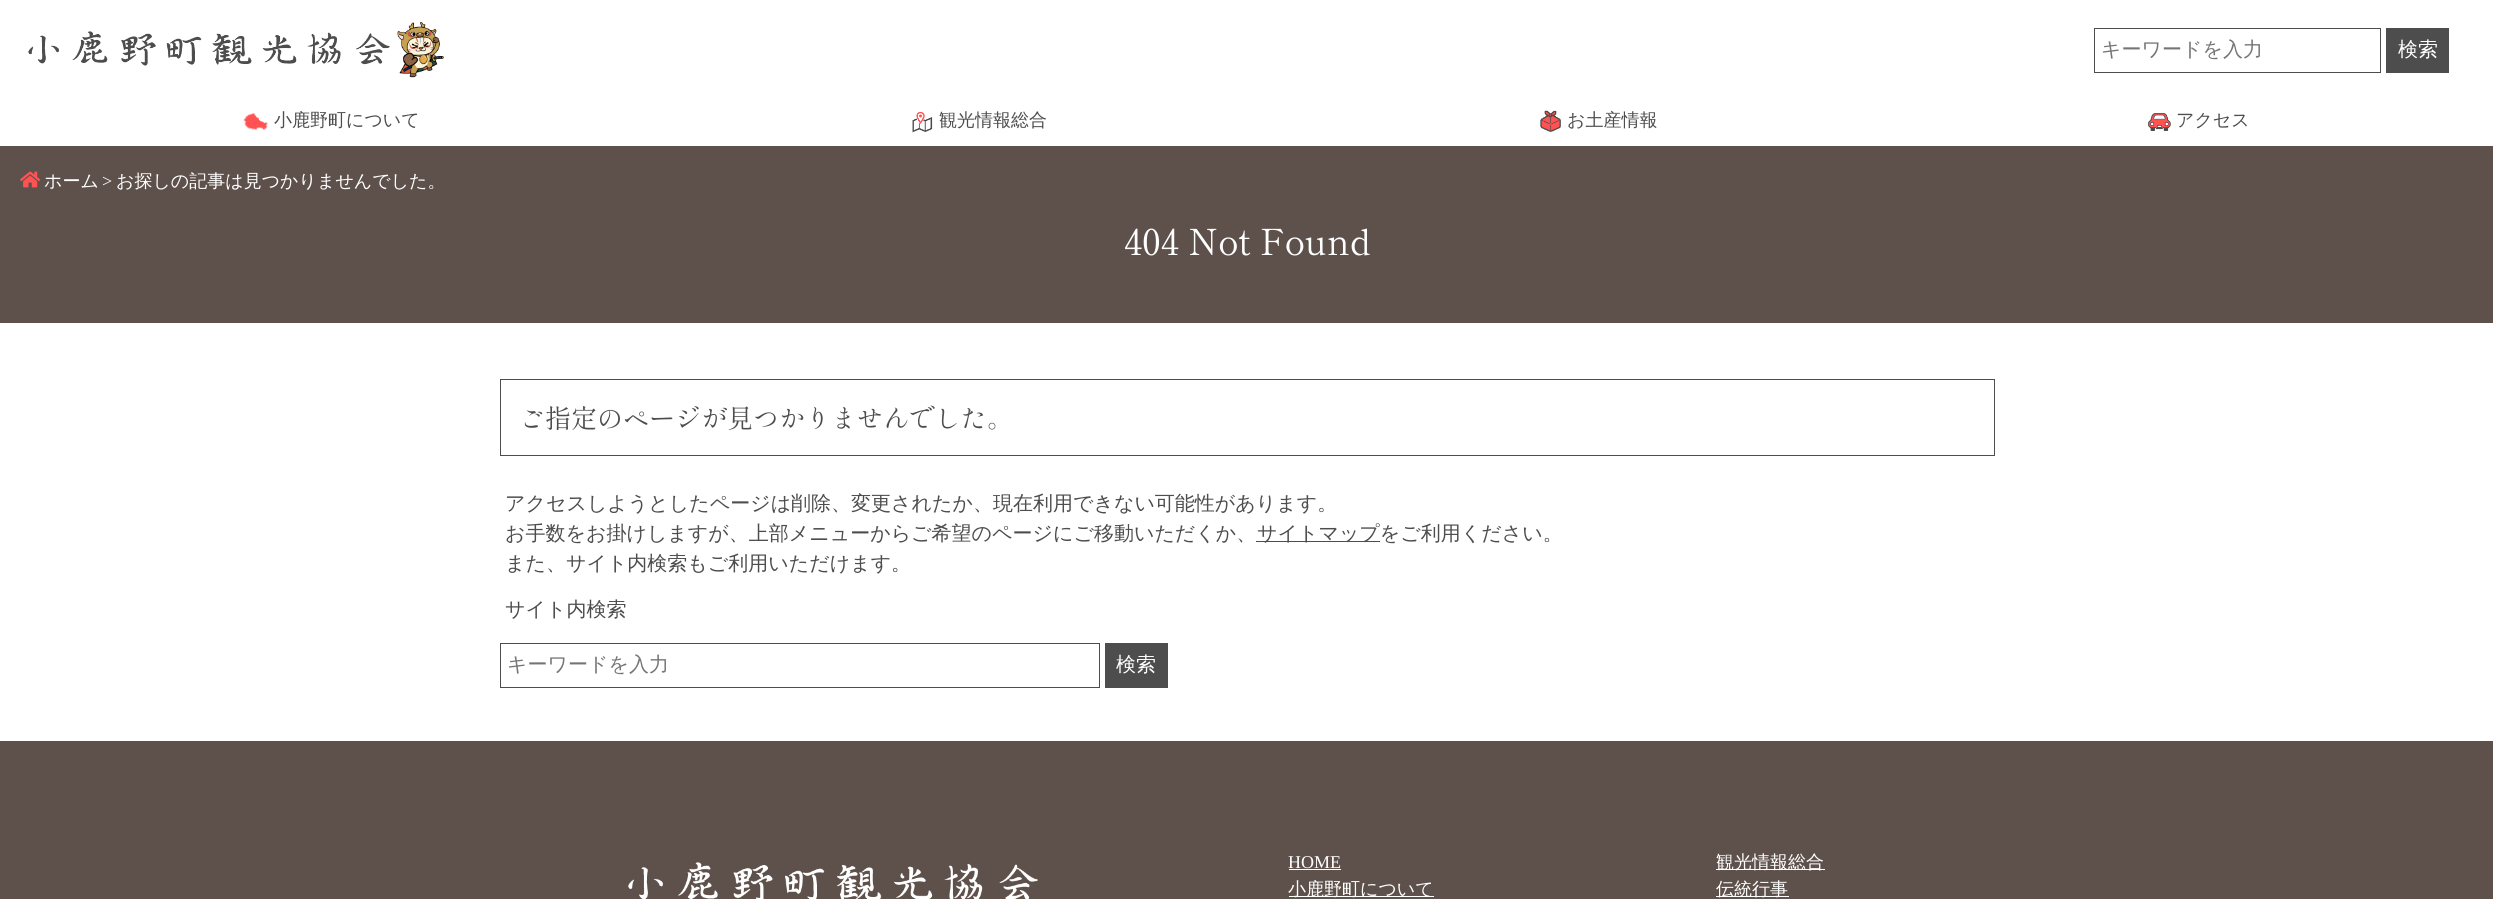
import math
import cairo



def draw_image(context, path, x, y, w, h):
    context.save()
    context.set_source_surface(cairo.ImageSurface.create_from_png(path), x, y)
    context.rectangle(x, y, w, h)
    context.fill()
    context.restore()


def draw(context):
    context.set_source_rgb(1, 1, 1)
    context.paint()
    draw_image(context, "images/1.png", 28, 31, 362, 35)
    draw_image(context, "images/2.png", 397, 22, 47, 56)
    context.rectangle(2094.5, 28.5, 286, 44)
    context.set_source_rgb(77 / 255, 77 / 255, 77 / 255)
    context.set_line_width(1)
    context.stroke()
    context.rectangle(2386, 28, 63, 45)
    context.fill()
    draw_image(context, "images/3.png", 243, 113, 25, 17)
    draw_image(context, "images/4.png", 912, 112, 21, 21)
    draw_image(context, "images/5.png", 1540, 110, 21, 22)
    draw_image(context, "images/6.png", 2148, 113, 23, 18)
    context.set_source_rgb(94 / 255, 81 / 255, 76 / 255)
    context.rectangle(0, 146, 2493, 177)
    context.fill()
    draw_image(context, "images/7.png", 20, 171, 21, 17)
    context.rectangle(500.5, 379.5, 1494, 76)
    context.set_source_rgb(77 / 255, 77 / 255, 77 / 255)
    context.stroke()
    context.rectangle(1256, 541, 124, 1)
    context.fill()
    context.rectangle(500.5, 643.5, 599, 44)
    context.stroke()
    context.rectangle(1105, 643, 63, 45)
    context.fill()
    context.set_source_rgb(94 / 255, 81 / 255, 76 / 255)
    context.rectangle(0, 741, 2493, 158)
    context.fill()
    draw_image(context, "images/8.png", 628, 862, 410, 37)
    context.set_source_rgb(1, 1, 1)
    context.rectangle(1289, 869, 52, 1)
    context.fill()
    context.rectangle(1289, 896, 145, 1)
    context.fill()
    context.rectangle(1716, 869, 109, 1)
    context.fill()
    context.rectangle(1716, 896, 73, 1)
    context.fill()
    context.select_font_face("WenQuanYi Zen Hei Medium")
    context.set_font_size(20)
    context.set_source_rgb(117 / 255, 117 / 255, 117 / 255)
    context.move_to(2101, 56)
    context.show_text("キーワードを入力")
    context.set_source_rgb(1, 1, 1)
    context.move_to(2398, 56)
    context.show_text("検索")
    context.set_font_size(18)
    context.set_source_rgb(77 / 255, 77 / 255, 77 / 255)
    context.move_to(274, 126)
    context.show_text("小鹿野町について")
    context.move_to(939, 126)
    context.show_text("観光情報総合")
    context.move_to(1567, 126)
    context.show_text("お土産情報")
    context.move_to(2176, 126)
    context.show_text("アクセス")
    context.set_source_rgb(1, 1, 1)
    context.move_to(44, 187)
    context.show_text("ホーム")
    context.select_font_face("Liberation Serif")
    context.move_to(102, 187)
    context.show_text(">")
    context.select_font_face("WenQuanYi Zen Hei Medium")
    context.move_to(116, 187)
    context.show_text("お探しの記事は見つかりませんでした。")
    context.select_font_face("Shippori Mincho")
    context.set_font_size(36)
    context.move_to(1124, 255)
    context.show_text("404 Not Found")
    context.set_font_size(26)
    context.set_source_rgb(77 / 255, 77 / 255, 77 / 255)
    context.move_to(519, 428)
    context.show_text("ご指定のページが見つかりませんでした。")
    context.select_font_face("WenQuanYi Zen Hei Medium")
    context.set_font_size(20)
    context.move_to(505, 510)
    context.show_text("アクセスしようとしたページは削除、変更されたか、現在利用できない可能性があります。")
    context.move_to(505, 540)
    context.show_text("お手数をお掛けしますが、上部メニューからご希望のページにご移動いただくか、")
    context.move_to(1257, 540)
    context.show_text("サイトマップをご利用ください。")
    context.move_to(505, 570)
    context.show_text("また、サイト内検索もご利用いただけます。")
    context.move_to(505, 616)
    context.show_text("サイト内検索")
    context.set_source_rgb(117 / 255, 117 / 255, 117 / 255)
    context.move_to(507, 671)
    context.show_text("キーワードを入力")
    context.set_source_rgb(1, 1, 1)
    context.move_to(1116, 671)
    context.show_text("検索")
    context.select_font_face("Liberation Serif")
    context.set_font_size(18)
    context.move_to(1288, 868)
    context.show_text("HOME")
    context.select_font_face("WenQuanYi Zen Hei Medium")
    context.move_to(1288, 895)
    context.show_text("小鹿野町について")
    context.move_to(1716, 868)
    context.show_text("観光情報総合")
    context.move_to(1716, 895)
    context.show_text("伝統行事")


surface = cairo.ImageSurface(cairo.Format.RGB24, 2493, 899)
context = cairo.Context(surface)
options = cairo.FontOptions()
options.set_hint_metrics(cairo.HintMetrics.OFF)
options.set_hint_style(cairo.HintStyle.NONE)
context.set_font_options(options)
context.set_miter_limit(4)
draw(context)
surface.write_to_png("out.png")
